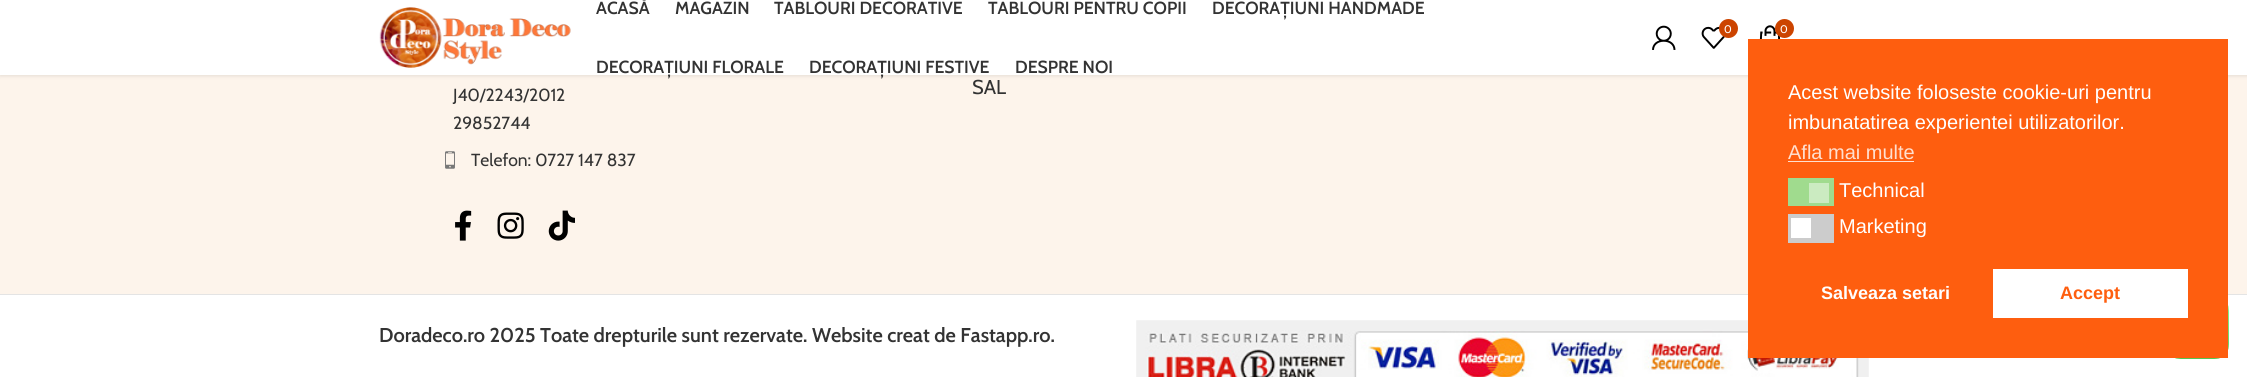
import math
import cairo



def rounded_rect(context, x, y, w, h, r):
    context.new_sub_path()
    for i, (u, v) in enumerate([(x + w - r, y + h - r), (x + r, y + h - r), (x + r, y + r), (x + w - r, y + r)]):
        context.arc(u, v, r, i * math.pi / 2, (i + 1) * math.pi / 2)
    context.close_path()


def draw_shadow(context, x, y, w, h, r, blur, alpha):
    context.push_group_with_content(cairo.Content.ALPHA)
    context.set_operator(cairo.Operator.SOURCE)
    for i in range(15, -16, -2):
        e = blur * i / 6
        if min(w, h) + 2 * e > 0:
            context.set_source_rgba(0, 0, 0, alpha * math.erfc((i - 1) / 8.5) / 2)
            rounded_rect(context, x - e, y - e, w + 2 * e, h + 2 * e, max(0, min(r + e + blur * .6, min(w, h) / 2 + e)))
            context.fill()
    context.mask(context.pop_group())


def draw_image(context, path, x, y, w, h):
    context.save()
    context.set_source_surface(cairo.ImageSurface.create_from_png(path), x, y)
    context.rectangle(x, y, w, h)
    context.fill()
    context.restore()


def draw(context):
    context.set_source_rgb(1, 1, 1)
    context.paint()
    context.set_source_rgb(253 / 255, 244 / 255, 235 / 255)
    context.rectangle(0, 75, 2247, 219)
    context.fill()
    context.set_source_rgb(0, 0, 0)
    draw_shadow(context, 0, 1, 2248, 75, 0, 2, 0.1)
    context.set_source_rgb(1, 1, 1)
    context.rectangle(0, 0, 2247, 75)
    context.fill()
    draw_image(context, "images/1.png", 379, 7, 192, 61)
    draw_image(context, "images/2.png", 1652, 25, 24, 25)
    draw_image(context, "images/3.png", 1701, 26, 24, 23)
    context.set_source_rgb(204 / 255, 68 / 255, 0)
    context.arc(1728.5, 28.5, 9.5, 0, 2 * math.pi)
    context.fill()
    draw_image(context, "images/4.png", 1759, 25, 22, 14)
    context.arc(1784.5, 28.5, 9.5, 0, 2 * math.pi)
    context.fill()
    draw_image(context, "images/5.png", 445, 151, 10, 18)
    draw_image(context, "images/6.png", 455, 210, 17, 31)
    draw_image(context, "images/7.png", 497, 212, 27, 27)
    draw_image(context, "images/8.png", 548, 210, 27, 31)
    context.set_source_rgb(228 / 255, 228 / 255, 228 / 255)
    context.rectangle(0, 294, 2247, 1)
    context.fill()
    draw_image(context, "images/9.png", 1136, 320, 733, 57)
    draw_image(context, "images/10.png", 2175, 305, 54, 54)
    context.set_source_rgb(254 / 255, 94 / 255, 15 / 255)
    context.rectangle(1748, 39, 480, 319)
    context.fill()
    context.set_source_rgb(1, 223 / 255, 207 / 255)
    context.rectangle(1788, 161, 126, 1)
    context.fill()
    context.set_source_rgb(160 / 255, 219 / 255, 142 / 255)
    context.rectangle(1788, 178, 46, 28)
    context.fill()
    context.set_source_rgb(203 / 255, 235 / 255, 193 / 255)
    context.rectangle(1809, 183, 20, 20)
    context.fill()
    context.set_source_rgb(204 / 255, 204 / 255, 204 / 255)
    context.rectangle(1788, 214, 46, 29)
    context.fill()
    context.set_source_rgb(1, 1, 1)
    context.rectangle(1791, 218, 20, 20)
    context.fill()
    context.rectangle(1993, 269, 195, 49)
    context.fill()
    context.select_font_face("Cabin SemiBold")
    context.set_font_size(17.5)
    context.set_source_rgb(51 / 255, 51 / 255, 51 / 255)
    context.move_to(596, 14)
    context.show_text("ACASĂ")
    context.move_to(675, 14)
    context.show_text("MAGAZIN")
    context.move_to(774, 14)
    context.show_text("TABLOURI DECORATIVE")
    context.move_to(988, 14)
    context.show_text("TABLOURI PENTRU COPII")
    context.move_to(1212, 14)
    context.show_text("DECORAȚIUNI HANDMADE")
    context.move_to(596, 73)
    context.show_text("DECORAȚIUNI FLORALE")
    context.move_to(809, 73)
    context.show_text("DECORAȚIUNI FESTIVE")
    context.move_to(1015, 73)
    context.show_text("DESPRE NOI")
    context.select_font_face("Cabin")
    context.set_font_size(11)
    context.set_source_rgb(1, 1, 1)
    context.move_to(1724, 33)
    context.show_text("0")
    context.move_to(1780, 33)
    context.show_text("0")
    context.set_font_size(17.5)
    context.set_source_rgb(51 / 255, 51 / 255, 51 / 255)
    context.move_to(453, 101)
    context.show_text("J40/2243/2012")
    context.move_to(453, 129)
    context.show_text("29852744")
    context.move_to(471, 166)
    context.show_text("Telefon: 0727 147 837")
    context.set_font_size(20)
    context.move_to(972, 94)
    context.show_text("SAL")
    context.select_font_face("Cabin SemiBold")
    context.move_to(379, 342)
    context.show_text("Doradeco.ro 2025 Toate drepturile sunt rezervate. Website creat de Fastapp.ro.")
    context.select_font_face("Liberation Sans")
    context.set_source_rgb(1, 1, 1)
    context.move_to(1788, 99)
    context.show_text("Acest website foloseste cookie-uri pentru")
    context.move_to(1788, 129)
    context.show_text("imbunatatirea experientei utilizatorilor.")
    context.set_source_rgb(1, 223 / 255, 207 / 255)
    context.move_to(1788, 159)
    context.show_text("Afla mai multe")
    context.set_source_rgb(1, 1, 1)
    context.move_to(1839, 197)
    context.show_text("Technical")
    context.move_to(1839, 233)
    context.show_text("Marketing")
    context.select_font_face("Liberation Sans", cairo.FontSlant.NORMAL, cairo.FontWeight.BOLD)
    context.set_font_size(18)
    context.move_to(1821, 299)
    context.show_text("Salveaza setari")
    context.set_source_rgb(254 / 255, 94 / 255, 15 / 255)
    context.move_to(2060, 299)
    context.show_text("Accept")


surface = cairo.ImageSurface(cairo.Format.RGB24, 2247, 377)
context = cairo.Context(surface)
options = cairo.FontOptions()
options.set_hint_metrics(cairo.HintMetrics.OFF)
options.set_hint_style(cairo.HintStyle.NONE)
context.set_font_options(options)
context.set_miter_limit(4)
draw(context)
surface.write_to_png("out.png")
